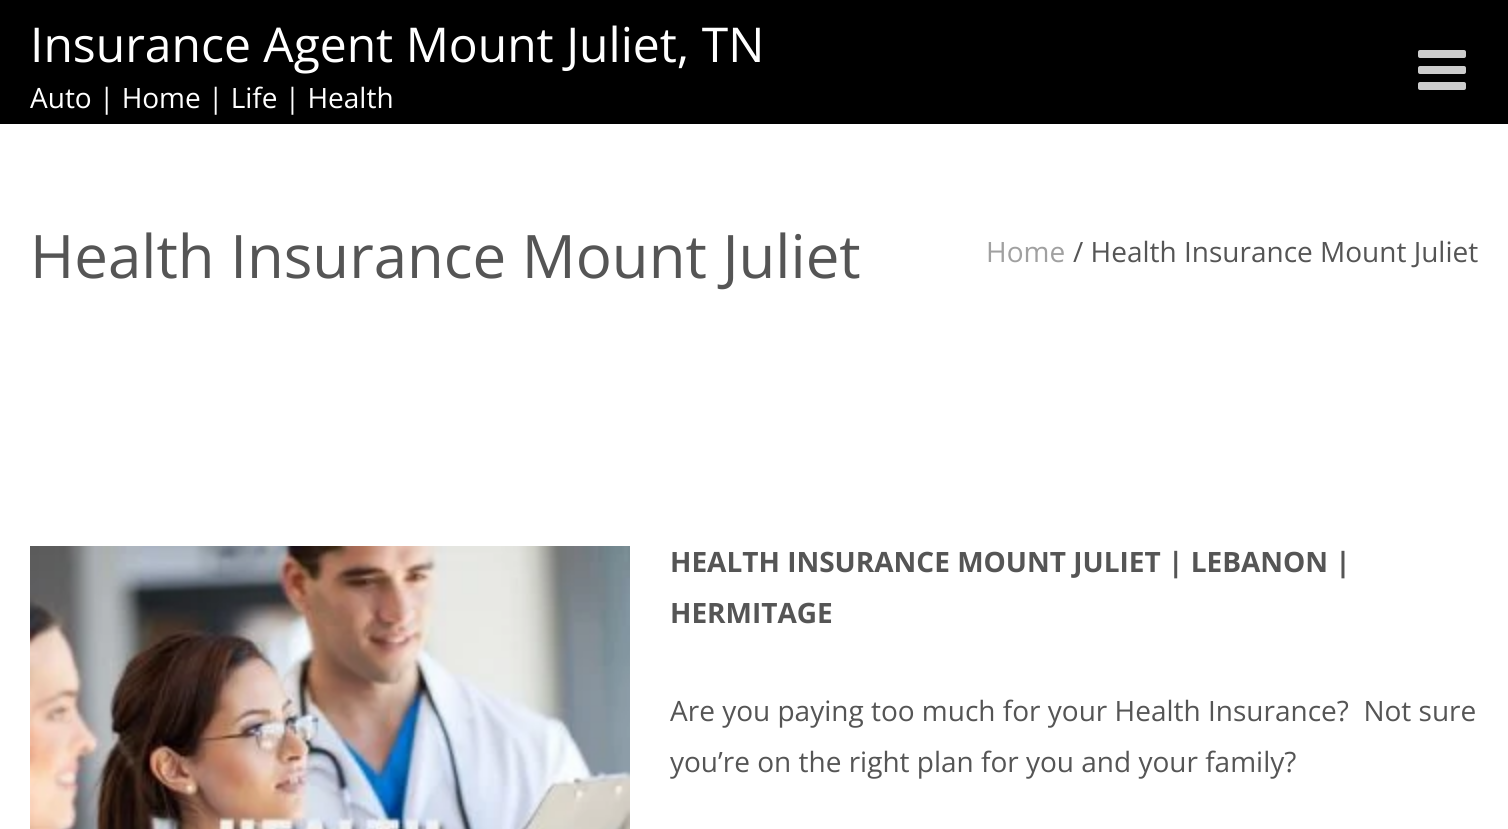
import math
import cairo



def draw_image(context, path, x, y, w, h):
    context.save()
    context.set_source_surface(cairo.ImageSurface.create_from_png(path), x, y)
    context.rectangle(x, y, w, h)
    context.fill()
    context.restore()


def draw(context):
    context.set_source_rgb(1, 1, 1)
    context.paint()
    context.set_source_rgb(0, 0, 0)
    context.rectangle(0, 0, 1508, 124)
    context.fill()
    draw_image(context, "images/1.png", 1418, 50, 48, 40)
    draw_image(context, "images/2.png", 30, 546, 600, 283)
    context.select_font_face("Open Sans")
    context.set_font_size(48)
    context.set_source_rgb(1, 1, 1)
    context.move_to(30, 62)
    context.show_text("Insurance Agent Mount Juliet, TN")
    context.set_font_size(28)
    context.move_to(30, 108)
    context.show_text("Auto | Home | Life | Health")
    context.set_font_size(60)
    context.set_source_rgb(85 / 255, 85 / 255, 85 / 255)
    context.move_to(30, 278)
    context.show_text("Health Insurance Mount Juliet")
    context.set_font_size(28)
    context.set_source_rgb(160 / 255, 160 / 255, 160 / 255)
    context.move_to(986, 262)
    context.show_text("Home")
    context.set_source_rgb(85 / 255, 85 / 255, 85 / 255)
    context.move_to(1073, 262)
    context.show_text("/ Health Insurance Mount Juliet")
    context.select_font_face("Open Sans", cairo.FontSlant.NORMAL, cairo.FontWeight.BOLD)
    context.move_to(670, 572)
    context.show_text("HEALTH INSURANCE MOUNT JULIET | LEBANON |")
    context.move_to(670, 623)
    context.show_text("HERMITAGE")
    context.select_font_face("Open Sans")
    context.move_to(670, 721)
    context.show_text("Are you paying too much for your Health Insurance?  Not sure")
    context.move_to(670, 772)
    context.show_text("you’re on the right plan for you and your family?")


surface = cairo.ImageSurface(cairo.Format.RGB24, 1508, 829)
context = cairo.Context(surface)
options = cairo.FontOptions()
options.set_hint_metrics(cairo.HintMetrics.OFF)
options.set_hint_style(cairo.HintStyle.NONE)
context.set_font_options(options)
context.set_miter_limit(4)
draw(context)
surface.write_to_png("out.png")
